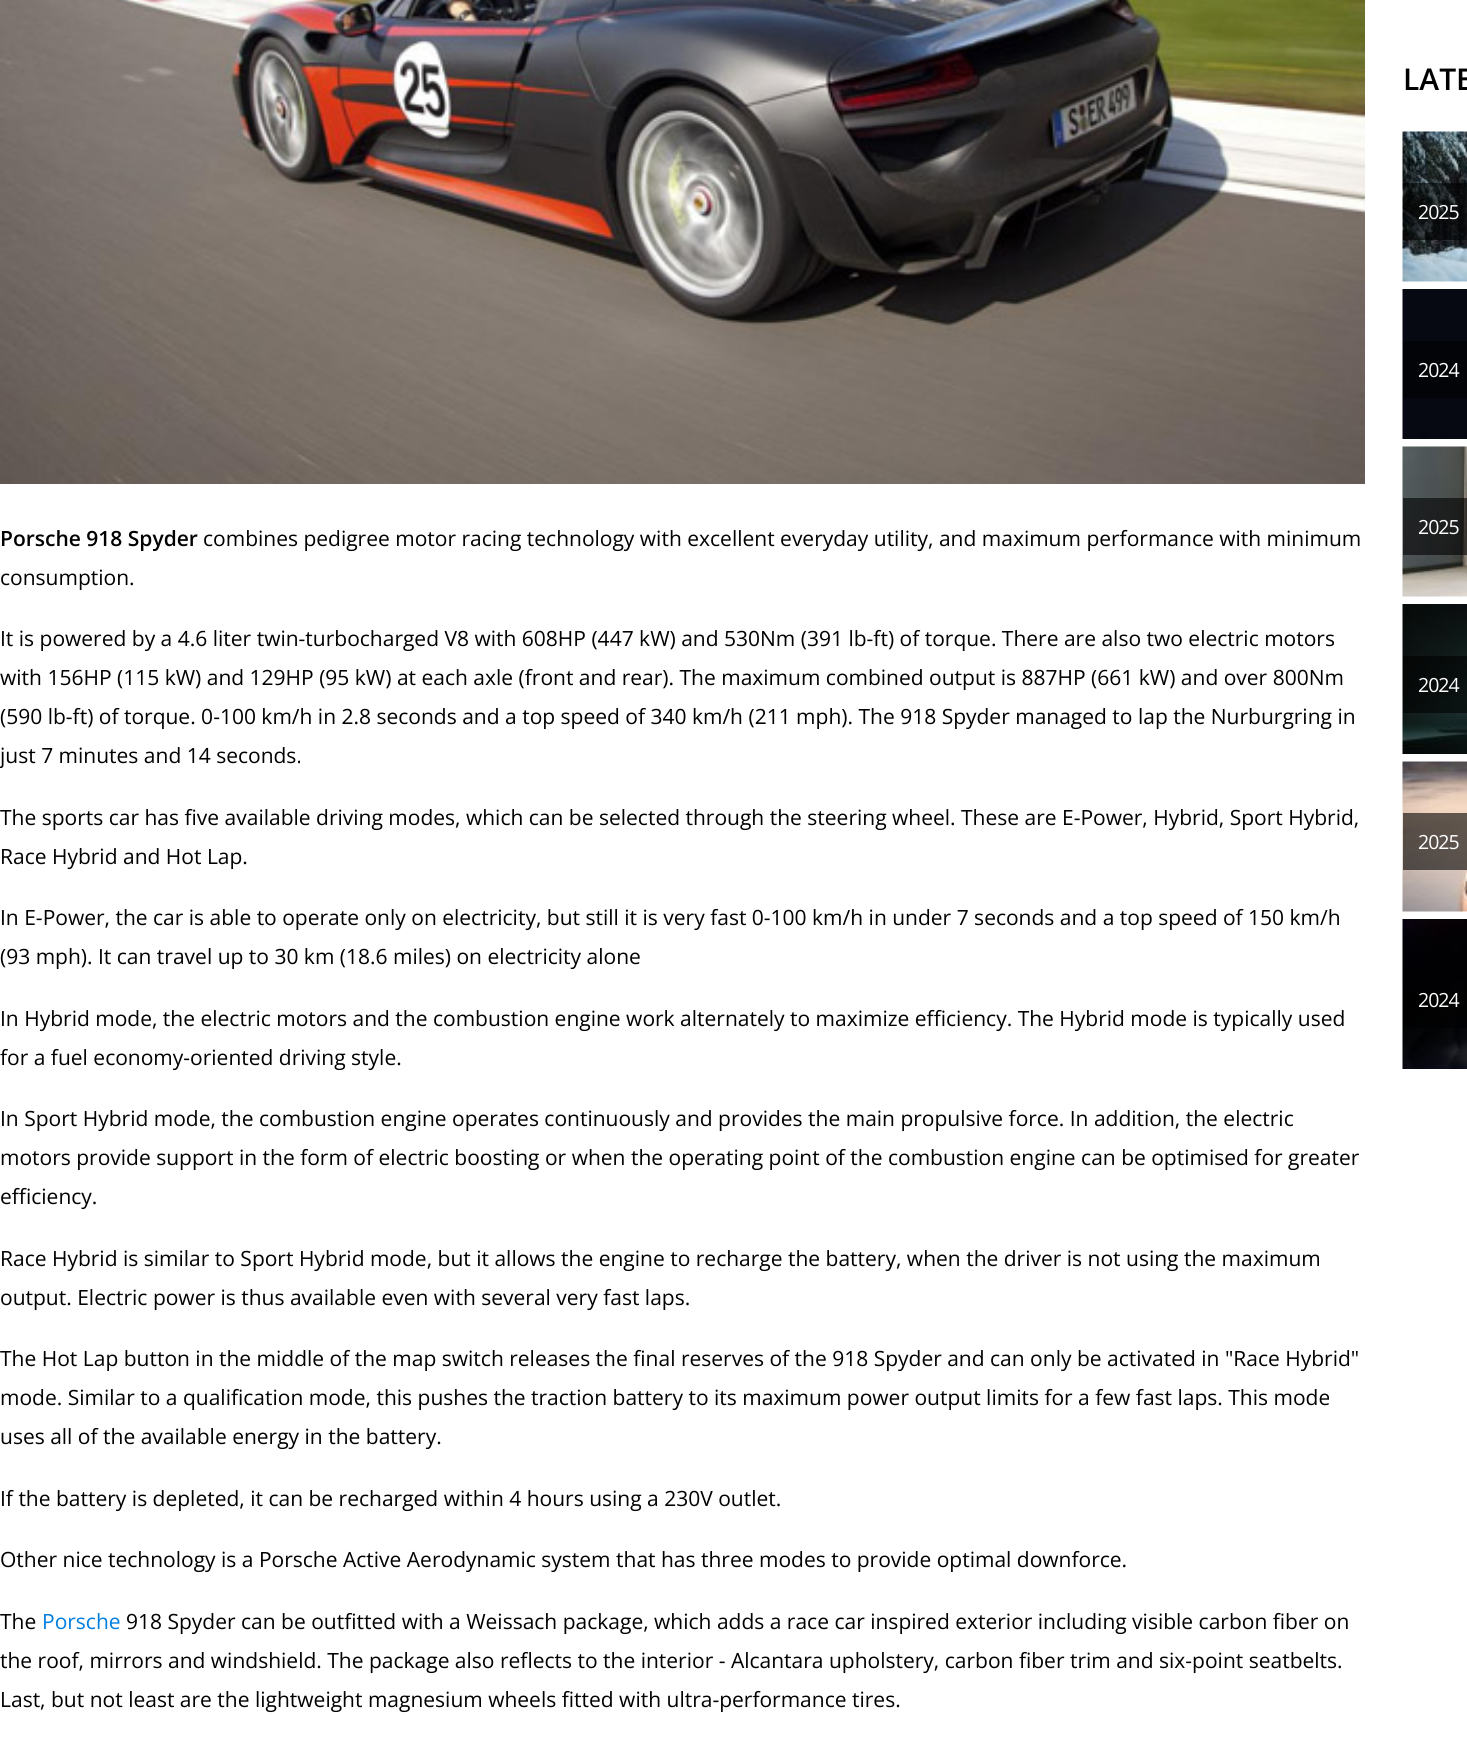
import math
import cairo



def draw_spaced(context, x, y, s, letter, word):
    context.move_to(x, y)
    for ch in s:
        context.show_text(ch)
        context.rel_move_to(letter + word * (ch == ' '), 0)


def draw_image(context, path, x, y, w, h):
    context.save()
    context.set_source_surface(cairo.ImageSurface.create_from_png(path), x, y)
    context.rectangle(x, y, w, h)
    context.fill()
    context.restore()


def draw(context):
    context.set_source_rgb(1, 1, 1)
    context.paint()
    draw_image(context, "images/1.png", 0, 0, 1365, 484)
    draw_image(context, "images/2.png", 1402, 131, 65, 151)
    context.set_source_rgba(0, 0, 0, 0.6)
    context.rectangle(1403, 183, 60, 57)
    context.fill()
    context.rectangle(1463, 183, 4, 57)
    context.fill()
    draw_image(context, "images/3.png", 1402, 289, 65, 150)
    context.set_source_rgb(2 / 255, 4 / 255, 7 / 255)
    context.rectangle(1403, 341, 64, 57)
    context.fill()
    draw_image(context, "images/4.png", 1402, 446, 65, 151)
    context.set_source_rgba(0, 0, 0, 0.6)
    context.rectangle(1403, 498, 60, 57)
    context.fill()
    context.rectangle(1463, 498, 4, 57)
    context.fill()
    draw_image(context, "images/5.png", 1402, 604, 65, 150)
    context.rectangle(1403, 656, 60, 57)
    context.fill()
    context.rectangle(1463, 656, 4, 57)
    context.fill()
    draw_image(context, "images/6.png", 1402, 761, 65, 151)
    context.rectangle(1403, 813, 60, 57)
    context.fill()
    context.rectangle(1463, 813, 4, 57)
    context.fill()
    draw_image(context, "images/7.png", 1402, 919, 65, 150)
    context.rectangle(1403, 991, 60, 37)
    context.fill()
    context.rectangle(1463, 987, 4, 41)
    context.fill()
    context.select_font_face("Open Sans SemiBold")
    context.set_font_size(21)
    context.set_source_rgb(0, 0, 0)
    context.move_to(0, 546)
    context.show_text("Porsche 918 Spyder")
    context.select_font_face("Open Sans")
    context.move_to(203, 546)
    context.show_text("combines pedigree motor racing technology with excellent everyday utility, and maximum performance with minimum")
    context.move_to(0, 585)
    context.show_text("consumption.")
    context.move_to(0, 646)
    context.show_text("It is powered by a 4.6 liter twin-turbocharged V8 with 608HP (447 kW) and 530Nm (391 lb-ft) of torque. There are also two electric motors")
    context.move_to(0, 685)
    context.show_text("with 156HP (115 kW) and 129HP (95 kW) at each axle (front and rear). The maximum combined output is 887HP (661 kW) and over 800Nm")
    context.move_to(0, 724)
    context.show_text("(590 lb-ft) of torque. 0-100 km/h in 2.8 seconds and a top speed of 340 km/h (211 mph). The 918 Spyder managed to lap the Nurburgring in")
    context.move_to(0, 763)
    context.show_text("just 7 minutes and 14 seconds.")
    context.move_to(0, 825)
    context.show_text("The sports car has five available driving modes, which can be selected through the steering wheel. These are E-Power, Hybrid, Sport Hybrid,")
    context.move_to(0, 864)
    context.show_text("Race Hybrid and Hot Lap.")
    context.move_to(0, 925)
    context.show_text("In E-Power, the car is able to operate only on electricity, but still it is very fast 0-100 km/h in under 7 seconds and a top speed of 150 km/h")
    context.move_to(0, 964)
    context.show_text("(93 mph). It can travel up to 30 km (18.6 miles) on electricity alone")
    context.move_to(0, 1026)
    context.show_text("In Hybrid mode, the electric motors and the combustion engine work alternately to maximize efficiency. The Hybrid mode is typically used")
    context.move_to(0, 1065)
    context.show_text("for a fuel economy-oriented driving style.")
    context.move_to(0, 1126)
    context.show_text("In Sport Hybrid mode, the combustion engine operates continuously and provides the main propulsive force. In addition, the electric")
    context.move_to(0, 1165)
    context.show_text("motors provide support in the form of electric boosting or when the operating point of the combustion engine can be optimised for greater")
    context.move_to(0, 1204)
    context.show_text("efficiency.")
    context.move_to(0, 1266)
    context.show_text("Race Hybrid is similar to Sport Hybrid mode, but it allows the engine to recharge the battery, when the driver is not using the maximum")
    context.move_to(0, 1305)
    context.show_text("output. Electric power is thus available even with several very fast laps.")
    context.move_to(0, 1366)
    context.show_text("The Hot Lap button in the middle of the map switch releases the final reserves of the 918 Spyder and can only be activated in \"Race Hybrid\"")
    context.move_to(0, 1405)
    context.show_text("mode. Similar to a qualification mode, this pushes the traction battery to its maximum power output limits for a few fast laps. This mode")
    context.move_to(0, 1444)
    context.show_text("uses all of the available energy in the battery.")
    context.move_to(0, 1506)
    context.show_text("If the battery is depleted, it can be recharged within 4 hours using a 230V outlet.")
    context.move_to(0, 1567)
    context.show_text("Other nice technology is a Porsche Active Aerodynamic system that has three modes to provide optimal downforce.")
    context.move_to(0, 1629)
    context.show_text("The")
    context.set_source_rgb(0, 126 / 255, 224 / 255)
    context.move_to(42, 1629)
    context.show_text("Porsche")
    context.set_source_rgb(0, 0, 0)
    context.move_to(126, 1629)
    context.show_text("918 Spyder can be outfitted with a Weissach package, which adds a race car inspired exterior including visible carbon fiber on")
    context.move_to(0, 1668)
    context.show_text("the roof, mirrors and windshield. The package also reflects to the interior - Alcantara upholstery, carbon fiber trim and six-point seatbelts.")
    context.move_to(0, 1707)
    context.show_text("Last, but not least are the lightweight magnesium wheels fitted with ultra-performance tires.")
    context.select_font_face("Open Sans SemiBold")
    context.set_font_size(30)
    context.move_to(1403, 90)
    context.show_text("LATE")
    context.select_font_face("Open Sans")
    context.set_font_size(19.5)
    context.set_source_rgb(1, 1, 1)
    draw_spaced(context, 1418, 219, "2025", -1, 0)
    draw_spaced(context, 1418, 377, "2024", -1, 0)
    draw_spaced(context, 1418, 534, "2025", -1, 0)
    draw_spaced(context, 1418, 692, "2024", -1, 0)
    draw_spaced(context, 1418, 849, "2025", -1, 0)
    draw_spaced(context, 1418, 1007, "2024", -1, 0)


surface = cairo.ImageSurface(cairo.Format.RGB24, 1467, 1749)
context = cairo.Context(surface)
options = cairo.FontOptions()
options.set_hint_metrics(cairo.HintMetrics.OFF)
options.set_hint_style(cairo.HintStyle.NONE)
context.set_font_options(options)
context.set_miter_limit(4)
draw(context)
surface.write_to_png("out.png")
